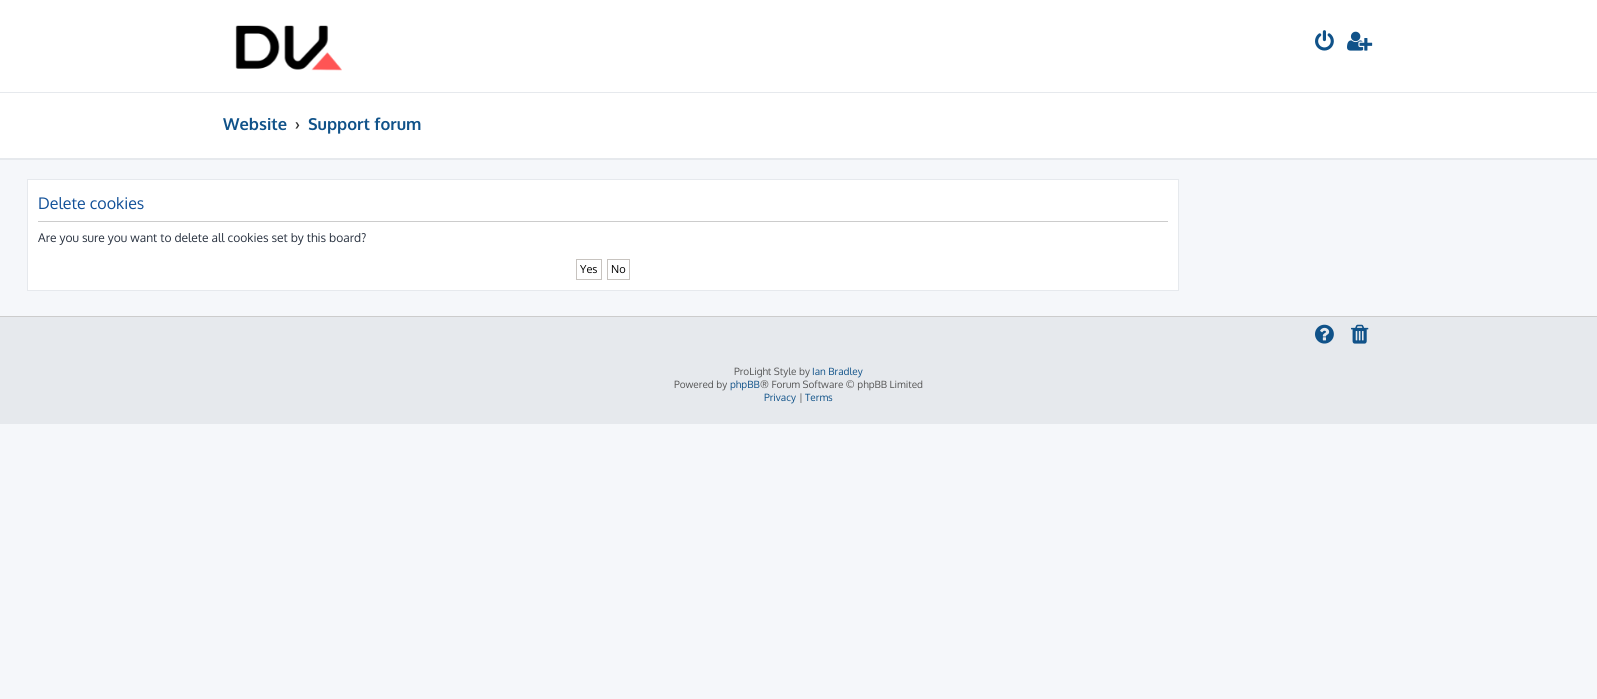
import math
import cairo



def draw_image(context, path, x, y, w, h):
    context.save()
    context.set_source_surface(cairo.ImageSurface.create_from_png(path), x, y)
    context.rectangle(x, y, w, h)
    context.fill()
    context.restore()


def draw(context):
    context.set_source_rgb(245 / 255, 247 / 255, 250 / 255)
    context.paint()
    context.set_source_rgb(1, 1, 1)
    context.rectangle(0, 0, 1597, 92)
    context.fill()
    context.set_source_rgb(230 / 255, 233 / 255, 237 / 255)
    context.rectangle(0, 92, 1597, 1)
    context.fill()
    draw_image(context, "images/1.png", 235, 25, 107, 46)
    draw_image(context, "images/2.png", 1315, 30, 19, 21)
    draw_image(context, "images/3.png", 1347, 31, 26, 20)
    context.set_source_rgb(1, 1, 1)
    context.rectangle(0, 93, 1597, 65)
    context.fill()
    context.set_source_rgb(230 / 255, 233 / 255, 237 / 255)
    context.rectangle(0, 158, 1597, 2)
    context.fill()
    context.set_source_rgb(1, 1, 1)
    context.rectangle(27.5, 179.5, 1151, 111)
    context.fill_preserve()
    context.set_source_rgb(230 / 255, 233 / 255, 237 / 255)
    context.set_line_width(1)
    context.stroke()
    context.set_source_rgb(204 / 255, 204 / 255, 204 / 255)
    context.rectangle(38, 221, 1130, 1)
    context.fill()
    context.rectangle(576.5, 259.5, 25, 20)
    context.set_source_rgb(199 / 255, 195 / 255, 191 / 255)
    context.stroke()
    context.rectangle(607.5, 259.5, 22, 20)
    context.stroke()
    context.set_source_rgb(230 / 255, 233 / 255, 237 / 255)
    context.rectangle(0, 317, 1597, 107)
    context.fill()
    context.set_source_rgb(204 / 255, 204 / 255, 204 / 255)
    context.rectangle(0, 316, 1597, 1)
    context.fill()
    draw_image(context, "images/4.png", 1315, 324, 19, 20)
    draw_image(context, "images/5.png", 1351, 324, 18, 20)
    context.select_font_face("Oxygen", cairo.FontSlant.NORMAL, cairo.FontWeight.BOLD)
    context.set_font_size(16.5)
    context.set_source_rgb(16 / 255, 82 / 255, 137 / 255)
    context.move_to(223, 130)
    context.show_text("Website")
    context.set_source_rgb(51 / 255, 51 / 255, 51 / 255)
    context.move_to(295, 130)
    context.show_text("›")
    context.set_source_rgb(16 / 255, 82 / 255, 137 / 255)
    context.move_to(308, 130)
    context.show_text("Support forum")
    context.select_font_face("Oxygen")
    context.set_font_size(16)
    context.set_source_rgb(17 / 255, 80 / 255, 152 / 255)
    context.move_to(38, 209)
    context.show_text("Delete cookies")
    context.set_font_size(12)
    context.set_source_rgb(40 / 255, 49 / 255, 63 / 255)
    context.move_to(38, 242)
    context.show_text("Are you sure you want to delete all cookies set by this board?")
    context.set_font_size(11)
    context.set_source_rgb(0, 0, 0)
    context.move_to(580, 273)
    context.show_text("Yes")
    context.move_to(611, 273)
    context.show_text("No")
    context.set_font_size(10)
    context.set_source_rgb(85 / 255, 85 / 255, 85 / 255)
    context.move_to(734, 375)
    context.show_text("ProLight Style by")
    context.set_source_rgb(16 / 255, 82 / 255, 137 / 255)
    context.move_to(812, 375)
    context.show_text("Ian Bradley")
    context.set_source_rgb(85 / 255, 85 / 255, 85 / 255)
    context.move_to(674, 388)
    context.show_text("Powered by")
    context.set_source_rgb(16 / 255, 82 / 255, 137 / 255)
    context.move_to(730, 388)
    context.show_text("phpBB")
    context.set_source_rgb(85 / 255, 85 / 255, 85 / 255)
    context.move_to(760, 388)
    context.show_text("® Forum Software © phpBB Limited")
    context.set_source_rgb(16 / 255, 82 / 255, 137 / 255)
    context.move_to(764, 401)
    context.show_text("Privacy")
    context.set_source_rgb(85 / 255, 85 / 255, 85 / 255)
    context.move_to(799, 401)
    context.show_text("|")
    context.set_source_rgb(16 / 255, 82 / 255, 137 / 255)
    context.move_to(805, 401)
    context.show_text("Terms")


surface = cairo.ImageSurface(cairo.Format.RGB24, 1597, 699)
context = cairo.Context(surface)
options = cairo.FontOptions()
options.set_hint_metrics(cairo.HintMetrics.OFF)
options.set_hint_style(cairo.HintStyle.NONE)
context.set_font_options(options)
context.set_miter_limit(4)
draw(context)
surface.write_to_png("out.png")
